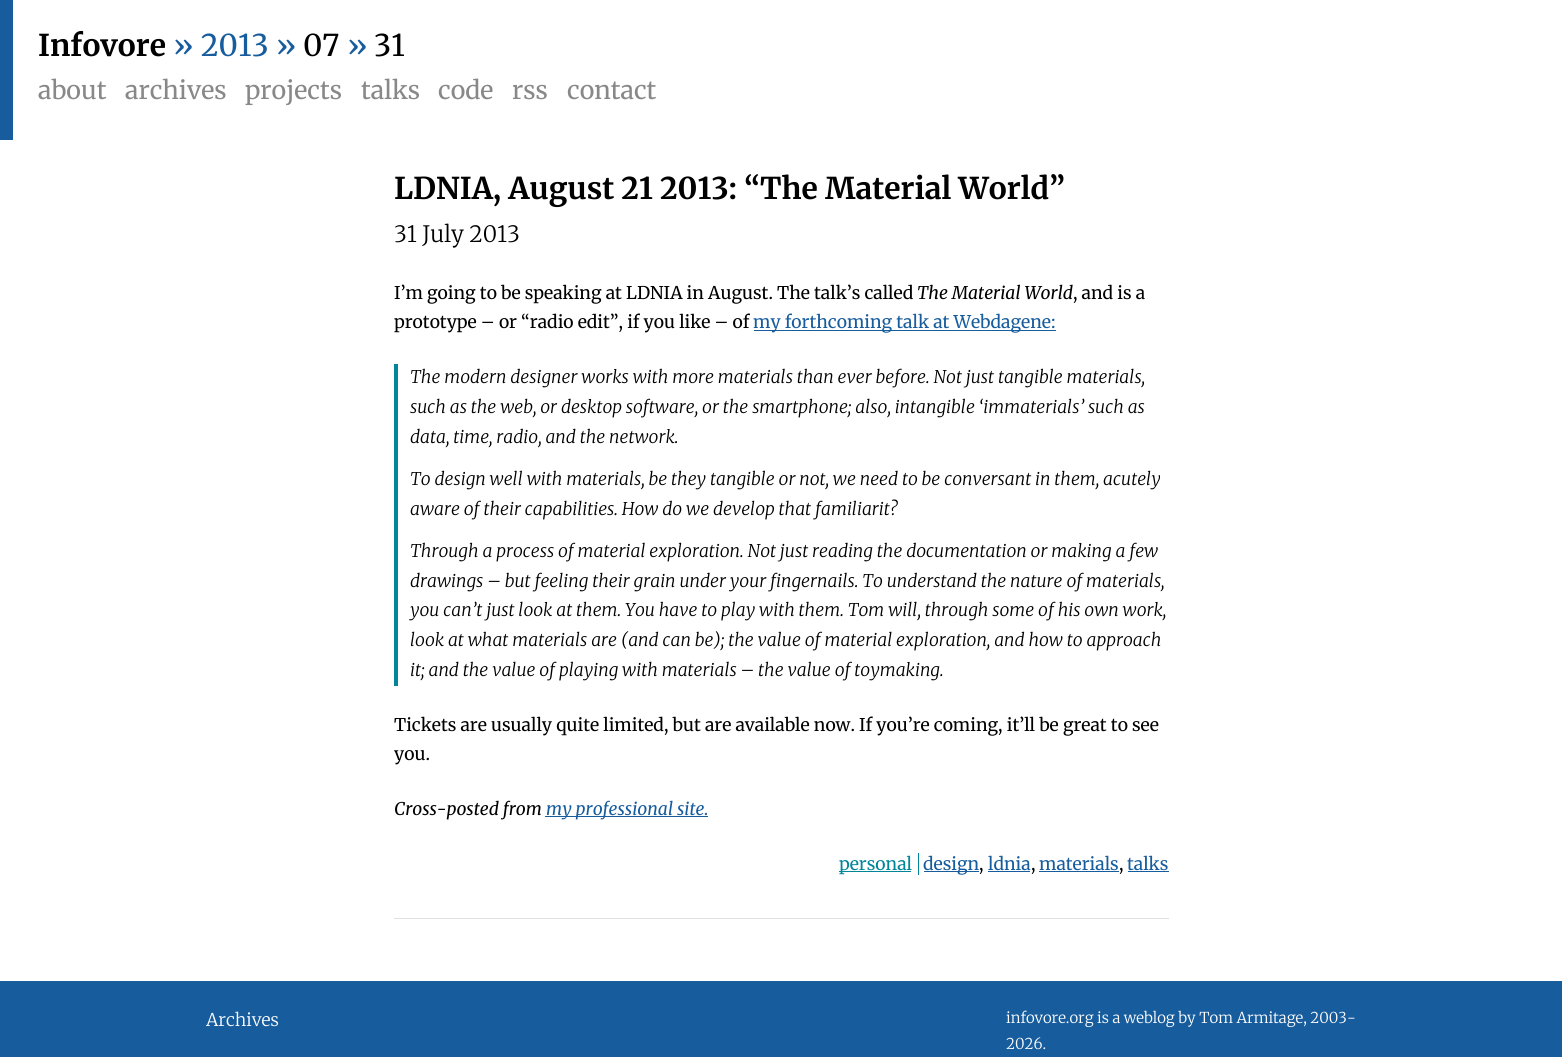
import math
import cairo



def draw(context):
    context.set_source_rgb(1, 1, 1)
    context.paint()
    context.set_source_rgb(23 / 255, 92 / 255, 157 / 255)
    context.rectangle(0, 0, 13, 140)
    context.fill()
    context.set_source_rgb(225 / 255, 225 / 255, 225 / 255)
    context.rectangle(394, 918, 775, 1)
    context.fill()
    context.set_source_rgb(23 / 255, 92 / 255, 157 / 255)
    context.rectangle(754, 330, 302, 1)
    context.fill()
    context.set_source_rgb(0, 133 / 255, 153 / 255)
    context.rectangle(394, 364, 4, 322)
    context.fill()
    context.set_source_rgb(23 / 255, 92 / 255, 157 / 255)
    context.rectangle(545, 816, 163, 1)
    context.fill()
    context.set_source_rgb(0, 133 / 255, 153 / 255)
    context.rectangle(918, 853, 1, 22)
    context.fill()
    context.rectangle(839, 871, 72, 1)
    context.fill()
    context.set_source_rgb(23 / 255, 92 / 255, 157 / 255)
    context.rectangle(924, 871, 55, 1)
    context.fill()
    context.rectangle(988, 871, 42, 1)
    context.fill()
    context.rectangle(1039, 871, 80, 1)
    context.fill()
    context.rectangle(1128, 871, 41, 1)
    context.fill()
    context.rectangle(0, 981, 1562, 76)
    context.fill()
    context.select_font_face("Merriweather", cairo.FontSlant.NORMAL, cairo.FontWeight.BOLD)
    context.set_font_size(30)
    context.set_source_rgb(0, 0, 0)
    context.move_to(38, 56)
    context.show_text("Infovore")
    context.select_font_face("Merriweather")
    context.set_source_rgb(23 / 255, 92 / 255, 157 / 255)
    context.move_to(173, 56)
    context.show_text("» 2013 »")
    context.set_source_rgb(0, 0, 0)
    context.move_to(303, 56)
    context.show_text("07")
    context.set_source_rgb(23 / 255, 92 / 255, 157 / 255)
    context.move_to(347, 56)
    context.show_text("»")
    context.set_source_rgb(0, 0, 0)
    context.move_to(374, 56)
    context.show_text("31")
    context.set_font_size(25)
    context.set_source_rgb(136 / 255, 136 / 255, 136 / 255)
    context.move_to(38, 99)
    context.show_text("about")
    context.move_to(125, 99)
    context.show_text("archives")
    context.move_to(245, 99)
    context.show_text("projects")
    context.move_to(361, 99)
    context.show_text("talks")
    context.move_to(438, 99)
    context.show_text("code")
    context.move_to(512, 99)
    context.show_text("rss")
    context.move_to(567, 99)
    context.show_text("contact")
    context.select_font_face("Merriweather", cairo.FontSlant.NORMAL, cairo.FontWeight.BOLD)
    context.set_font_size(30)
    context.set_source_rgb(0, 0, 0)
    context.move_to(394, 199)
    context.show_text("LDNIA, August 21 2013: “The Material World”")
    context.select_font_face("Merriweather Light")
    context.set_font_size(22.5)
    context.move_to(394, 242)
    context.show_text("31 July 2013")
    context.select_font_face("Merriweather")
    context.set_font_size(17.5)
    context.move_to(394, 299)
    context.show_text("I’m going to be speaking at LDNIA in August. The talk’s called")
    context.select_font_face("Merriweather", cairo.FontSlant.ITALIC)
    context.move_to(917, 299)
    context.show_text("The Material World")
    context.select_font_face("Merriweather")
    context.move_to(1073, 299)
    context.show_text(", and is a")
    context.move_to(394, 328)
    context.show_text("prototype – or “radio edit”, if you like – of")
    context.set_source_rgb(23 / 255, 92 / 255, 157 / 255)
    context.move_to(753, 328)
    context.show_text("my forthcoming talk at Webdagene:")
    context.select_font_face("Merriweather Light", cairo.FontSlant.ITALIC)
    context.set_source_rgb(0, 0, 0)
    context.move_to(410, 383)
    context.show_text("The modern designer works with more materials than ever before. Not just tangible materials,")
    context.move_to(410, 413)
    context.show_text("such as the web, or desktop software, or the smartphone; also, intangible ‘immaterials’ such as")
    context.move_to(410, 443)
    context.show_text("data, time, radio, and the network.")
    context.move_to(410, 485)
    context.show_text("To design well with materials, be they tangible or not, we need to be conversant in them, acutely")
    context.move_to(410, 515)
    context.show_text("aware of their capabilities. How do we develop that familiarit?")
    context.move_to(410, 557)
    context.show_text("Through a process of material exploration. Not just reading the documentation or making a few")
    context.move_to(410, 587)
    context.show_text("drawings – but feeling their grain under your fingernails. To understand the nature of materials,")
    context.move_to(410, 616)
    context.show_text("you can’t just look at them. You have to play with them. Tom will, through some of his own work,")
    context.move_to(410, 646)
    context.show_text("look at what materials are (and can be); the value of material exploration, and how to approach")
    context.move_to(410, 676)
    context.show_text("it; and the value of playing with materials – the value of toymaking.")
    context.select_font_face("Merriweather")
    context.move_to(394, 731)
    context.show_text("Tickets are usually quite limited, but are available now. If you’re coming, it’ll be great to see")
    context.move_to(394, 760)
    context.show_text("you.")
    context.select_font_face("Merriweather", cairo.FontSlant.ITALIC)
    context.move_to(394, 815)
    context.show_text("Cross-posted from")
    context.set_source_rgb(23 / 255, 92 / 255, 157 / 255)
    context.move_to(546, 815)
    context.show_text("my professional site.")
    context.select_font_face("Merriweather")
    context.set_source_rgb(0, 133 / 255, 153 / 255)
    context.move_to(839, 870)
    context.show_text("personal")
    context.set_source_rgb(23 / 255, 92 / 255, 157 / 255)
    context.move_to(923, 870)
    context.show_text("design")
    context.set_source_rgb(0, 0, 0)
    context.move_to(979, 870)
    context.show_text(",")
    context.set_source_rgb(23 / 255, 92 / 255, 157 / 255)
    context.move_to(988, 870)
    context.show_text("ldnia")
    context.set_source_rgb(0, 0, 0)
    context.move_to(1031, 870)
    context.show_text(",")
    context.set_source_rgb(23 / 255, 92 / 255, 157 / 255)
    context.move_to(1039, 870)
    context.show_text("materials")
    context.set_source_rgb(0, 0, 0)
    context.move_to(1119, 870)
    context.show_text(",")
    context.set_source_rgb(23 / 255, 92 / 255, 157 / 255)
    context.move_to(1127, 870)
    context.show_text("talks")
    context.select_font_face("Merriweather Light")
    context.set_source_rgb(1, 1, 1)
    context.move_to(206, 1026)
    context.show_text("Archives")
    context.set_font_size(15)
    context.move_to(1006, 1023)
    context.show_text("infovore.org is a weblog by Tom Armitage, 2003-")
    context.move_to(1006, 1049)
    context.show_text("2026.")


surface = cairo.ImageSurface(cairo.Format.RGB24, 1562, 1057)
context = cairo.Context(surface)
options = cairo.FontOptions()
options.set_hint_metrics(cairo.HintMetrics.OFF)
options.set_hint_style(cairo.HintStyle.NONE)
context.set_font_options(options)
context.set_miter_limit(4)
draw(context)
surface.write_to_png("out.png")
